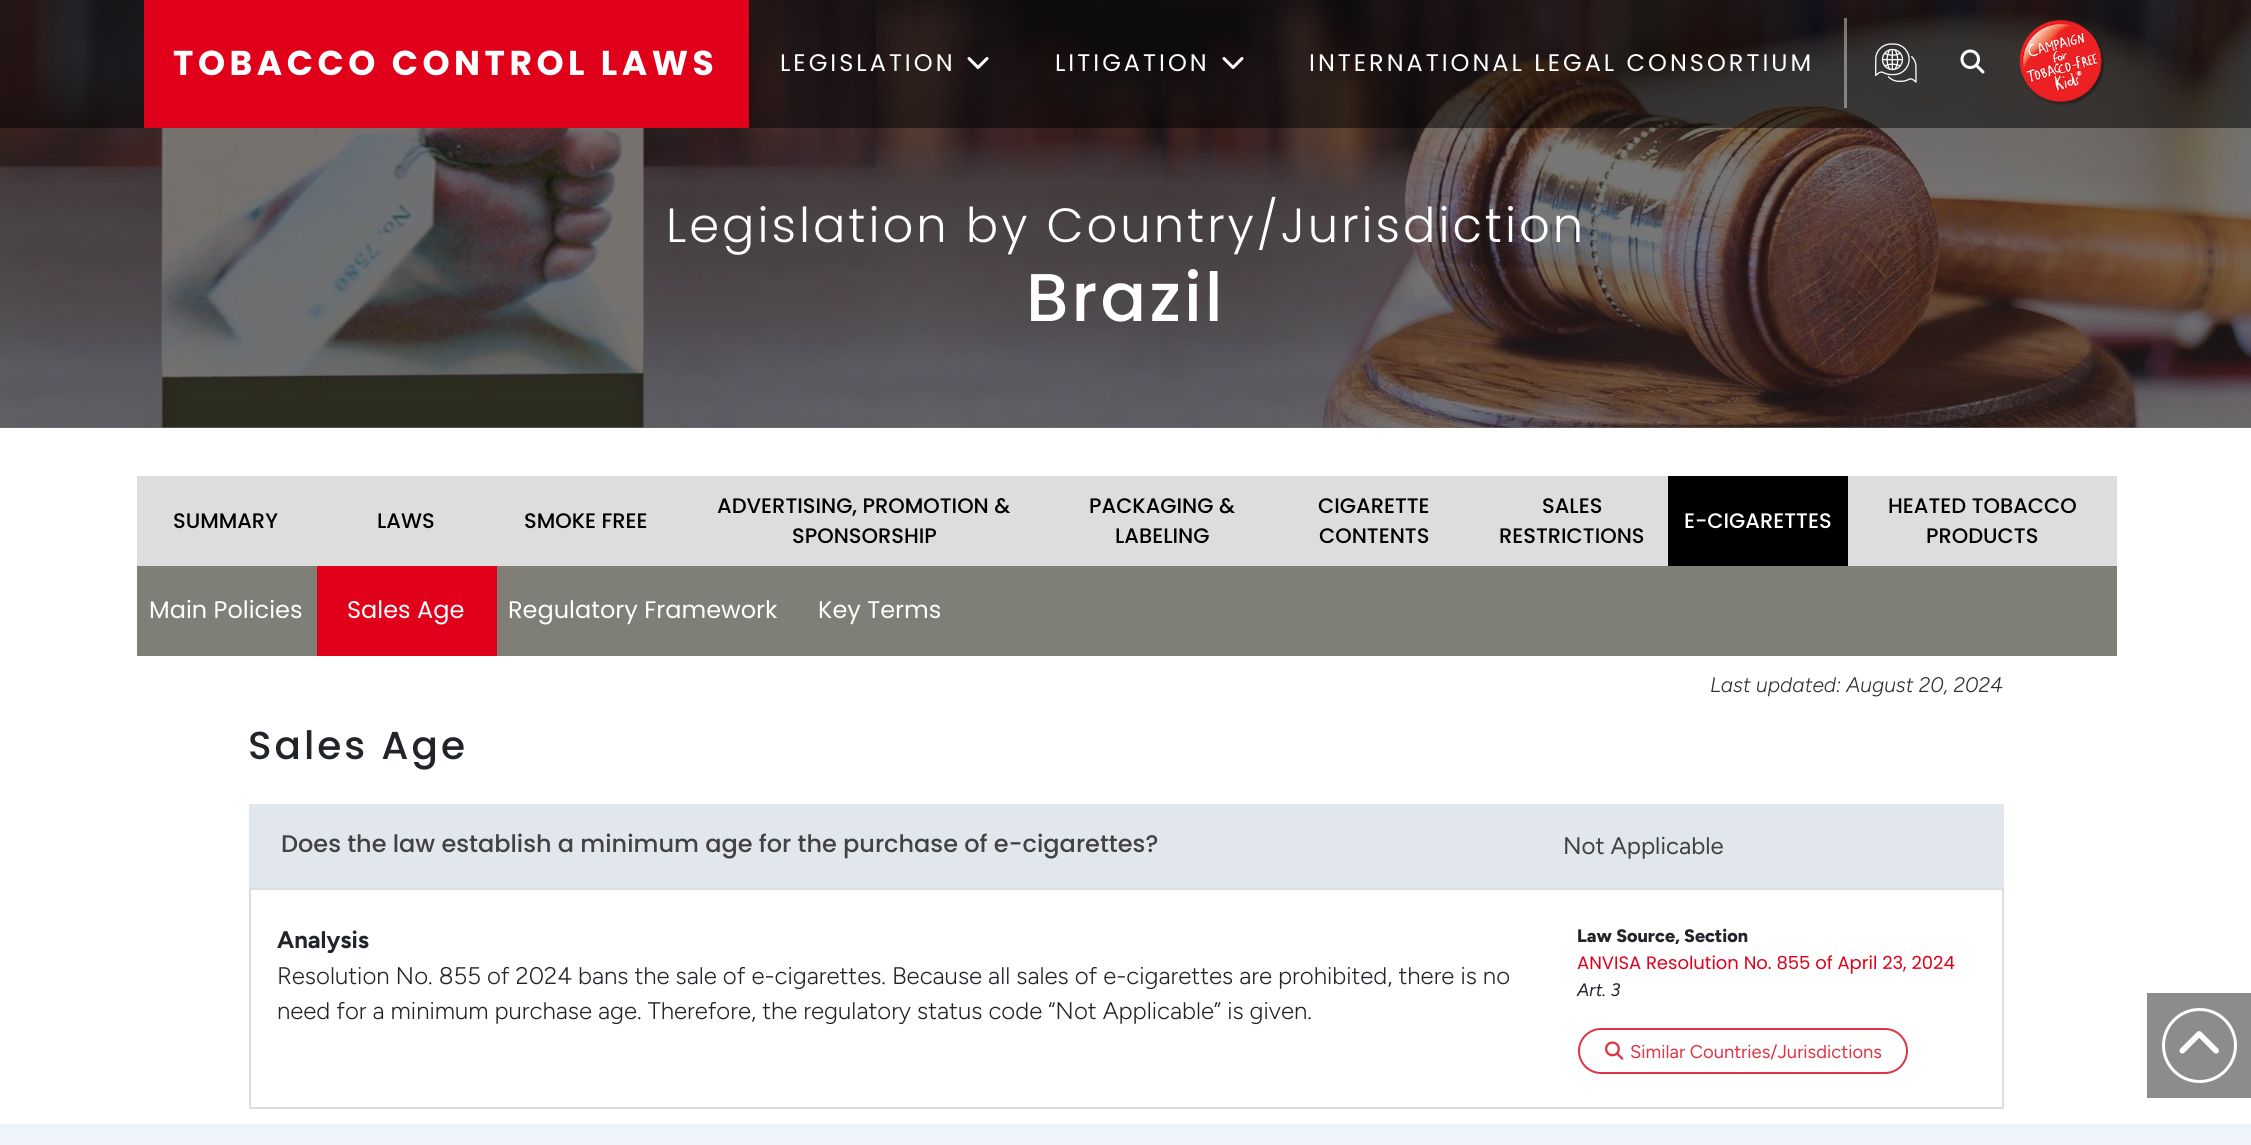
import math
import cairo



def draw_spaced(context, x, y, s, letter, word):
    context.move_to(x, y)
    for ch in s:
        context.show_text(ch)
        context.rel_move_to(letter + word * (ch == ' '), 0)


def rounded_rect(context, x, y, w, h, r):
    context.new_sub_path()
    for i, (u, v) in enumerate([(x + w - r, y + h - r), (x + r, y + h - r), (x + r, y + r), (x + w - r, y + r)]):
        context.arc(u, v, r, i * math.pi / 2, (i + 1) * math.pi / 2)
    context.close_path()


def draw_image(context, path, x, y, w, h):
    context.save()
    context.set_source_surface(cairo.ImageSurface.create_from_png(path), x, y)
    context.rectangle(x, y, w, h)
    context.fill()
    context.restore()


def draw(context):
    context.set_source_rgb(1, 1, 1)
    context.paint()
    context.set_source_rgb(119 / 255, 119 / 255, 119 / 255)
    context.rectangle(0, 427, 2251, 1)
    context.fill()
    draw_image(context, "images/6.png", 0, 0, 2251, 428)
    context.set_source_rgba(0, 0, 0, 0.5)
    context.rectangle(0, 0, 2251, 128)
    context.fill()
    context.set_source_rgb(225 / 255, 0, 26 / 255)
    context.rectangle(144, 0, 605, 128)
    context.fill()
    context.set_source_rgba(0, 0, 0, 0.18)
    context.rectangle(749, 0, 2, 126)
    context.fill()
    draw_image(context, "images/1.png", 967, 57, 22, 12)
    draw_image(context, "images/2.png", 1222, 57, 22, 12)
    context.set_source_rgba(1, 1, 1, 0.4)
    context.rectangle(1844, 18, 3, 90)
    context.fill()
    draw_image(context, "images/3.png", 1875, 43, 42, 40)
    draw_image(context, "images/4.png", 1960, 49, 25, 25)
    draw_image(context, "images/5.png", 2019, 20, 86, 85)
    context.set_source_rgb(221 / 255, 221 / 255, 221 / 255)
    context.rectangle(137, 476, 1980, 90)
    context.fill()
    context.set_source_rgb(0, 0, 0)
    context.rectangle(1668, 476, 180, 90)
    context.fill()
    context.set_source_rgb(127 / 255, 127 / 255, 119 / 255)
    context.rectangle(137, 566, 1980, 90)
    context.fill()
    context.set_source_rgb(225 / 255, 0, 26 / 255)
    context.rectangle(317, 566, 180, 90)
    context.fill()
    context.set_source_rgb(226 / 255, 231 / 255, 237 / 255)
    context.rectangle(249, 804, 1755, 84)
    context.fill()
    context.rectangle(250, 889, 1753, 219)
    context.set_source_rgb(221 / 255, 221 / 255, 221 / 255)
    context.stroke()
    rounded_rect(context, 1579, 1029, 328, 44, 22)
    context.set_source_rgb(220 / 255, 53 / 255, 69 / 255)
    context.stroke()
    draw_image(context, "images/7.png", 1605, 1041, 19, 19)
    context.set_source_rgb(139 / 255, 140 / 255, 139 / 255)
    context.rectangle(2147, 993, 104, 105)
    context.fill()
    context.arc(2199.5, 1045.5, 36, 0, 2 * math.pi)
    context.set_source_rgb(1, 1, 1)
    context.set_line_width(3)
    context.stroke()
    draw_image(context, "images/8.png", 2179, 1031, 40, 23)
    context.set_source_rgb(239 / 255, 244 / 255, 250 / 255)
    context.rectangle(0, 1124, 2251, 21)
    context.fill()
    context.select_font_face("Poppins", cairo.FontSlant.NORMAL, cairo.FontWeight.BOLD)
    context.set_font_size(34.5)
    context.set_source_rgb(1, 1, 1)
    draw_spaced(context, 173, 75, "TOBACCO CONTROL LAWS", 4.5, 0)
    context.select_font_face("Poppins")
    context.set_font_size(24)
    draw_spaced(context, 780, 71, "LEGISLATION", 3, 0)
    draw_spaced(context, 1055, 71, "LITIGATION", 3, 0)
    draw_spaced(context, 1309, 71, "INTERNATIONAL LEGAL CONSORTIUM", 3, 0)
    context.select_font_face("Poppins Light")
    context.set_font_size(48)
    draw_spaced(context, 666, 242, "Legislation by Country/Jurisdiction", 3, 0)
    context.select_font_face("Poppins Medium")
    context.set_font_size(67.5)
    draw_spaced(context, 1026, 321, "Brazil", 3, 0)
    context.set_font_size(21)
    context.set_source_rgb(0, 0, 0)
    context.move_to(173, 528)
    context.show_text("SUMMARY")
    context.move_to(377, 528)
    context.show_text("LAWS")
    context.move_to(524, 528)
    context.show_text("SMOKE FREE")
    context.move_to(717, 513)
    context.show_text("ADVERTISING, PROMOTION &")
    context.move_to(792, 543)
    context.show_text("SPONSORSHIP")
    context.move_to(1089, 513)
    context.show_text("PACKAGING &")
    context.move_to(1115, 543)
    context.show_text("LABELING")
    context.move_to(1318, 513)
    context.show_text("CIGARETTE")
    context.move_to(1319, 543)
    context.show_text("CONTENTS")
    context.move_to(1542, 513)
    context.show_text("SALES")
    context.move_to(1499, 543)
    context.show_text("RESTRICTIONS")
    context.set_source_rgb(1, 1, 1)
    context.move_to(1684, 528)
    context.show_text("E-CIGARETTES")
    context.set_source_rgb(0, 0, 0)
    context.move_to(1888, 513)
    context.show_text("HEATED TOBACCO")
    context.move_to(1926, 543)
    context.show_text("PRODUCTS")
    context.select_font_face("Poppins")
    context.set_font_size(24)
    context.set_source_rgb(1, 1, 1)
    context.move_to(149, 618)
    context.show_text("Main Policies")
    context.move_to(347, 618)
    context.show_text("Sales Age")
    context.move_to(508, 618)
    context.show_text("Regulatory Framework")
    context.move_to(818, 618)
    context.show_text("Key Terms")
    context.select_font_face("Figtree Light", cairo.FontSlant.ITALIC)
    context.set_font_size(21)
    context.set_source_rgb(47 / 255, 47 / 255, 47 / 255)
    context.move_to(1710, 692)
    context.show_text("Last updated: August 20, 2024")
    context.select_font_face("Poppins Medium")
    context.set_font_size(39)
    context.set_source_rgb(33 / 255, 37 / 255, 41 / 255)
    draw_spaced(context, 248, 759, "Sales Age", 3, 0)
    context.set_font_size(24)
    context.set_source_rgb(66 / 255, 66 / 255, 66 / 255)
    context.move_to(281, 852)
    context.show_text("Does the law establish a minimum age for the purchase of e-cigarettes?")
    context.select_font_face("Figtree")
    context.move_to(1563, 854)
    context.show_text("Not Applicable")
    context.select_font_face("Figtree", cairo.FontSlant.NORMAL, cairo.FontWeight.BOLD)
    context.set_source_rgb(33 / 255, 37 / 255, 41 / 255)
    context.move_to(277, 948)
    context.show_text("Analysis")
    context.select_font_face("Figtree Light")
    context.move_to(277, 984)
    context.show_text("Resolution No. 855 of 2024 bans the sale of e-cigarettes. Because all sales of e-cigarettes are prohibited, there is no")
    context.move_to(277, 1019)
    context.show_text("need for a minimum purchase age. Therefore, the regulatory status code “Not Applicable” is given.")
    context.select_font_face("Figtree ExtraBold")
    context.set_font_size(18)
    context.move_to(1577, 942)
    context.show_text("Law Source, Section")
    context.select_font_face("Poppins")
    context.set_source_rgb(225 / 255, 0, 26 / 255)
    context.move_to(1577, 969)
    context.show_text("ANVISA Resolution No. 855 of April 23, 2024")
    context.select_font_face("Figtree", cairo.FontSlant.ITALIC)
    context.set_source_rgb(33 / 255, 37 / 255, 41 / 255)
    context.move_to(1577, 996)
    context.show_text("Art. 3")
    context.select_font_face("Figtree")
    context.set_font_size(18.4)
    context.set_source_rgb(220 / 255, 53 / 255, 69 / 255)
    context.move_to(1630, 1058)
    context.show_text("Similar Countries/Jurisdictions")


surface = cairo.ImageSurface(cairo.Format.RGB24, 2251, 1145)
context = cairo.Context(surface)
options = cairo.FontOptions()
options.set_hint_metrics(cairo.HintMetrics.OFF)
options.set_hint_style(cairo.HintStyle.NONE)
context.set_font_options(options)
context.set_miter_limit(4)
draw(context)
surface.write_to_png("out.png")
